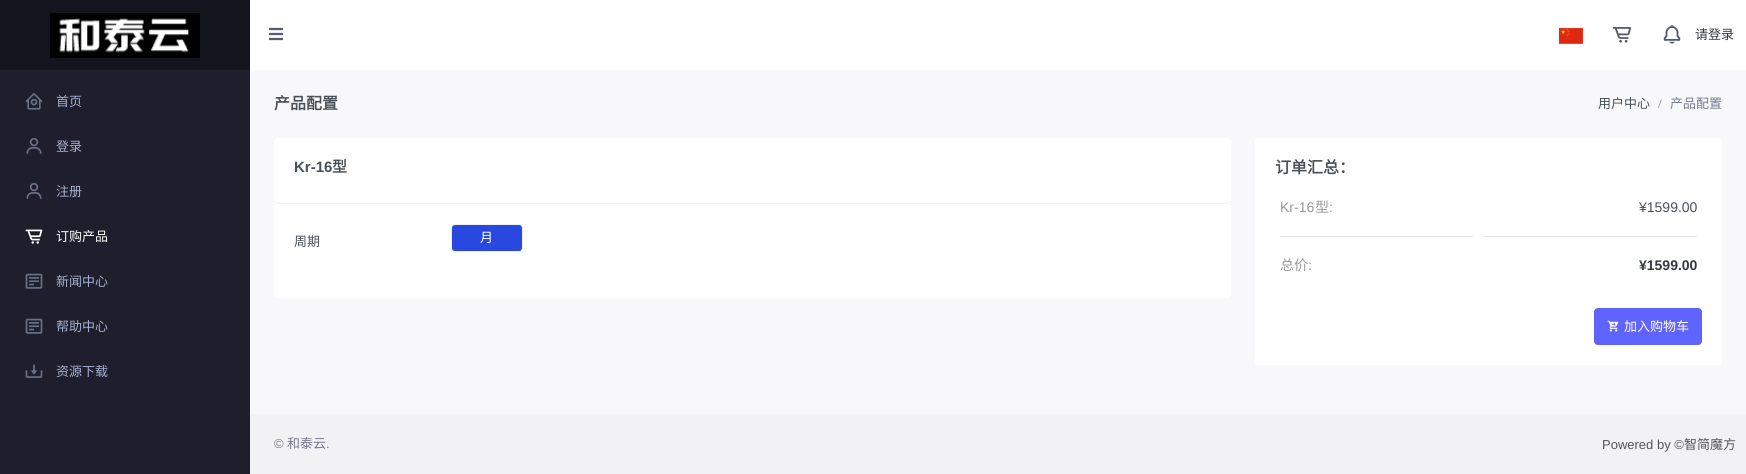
import math
import cairo



def rounded_rect(context, x, y, w, h, r):
    context.new_sub_path()
    for i, (u, v) in enumerate([(x + w - r, y + h - r), (x + r, y + h - r), (x + r, y + r), (x + w - r, y + r)]):
        context.arc(u, v, r, i * math.pi / 2, (i + 1) * math.pi / 2)
    context.close_path()


def draw_image(context, path, x, y, w, h):
    context.save()
    context.set_source_surface(cairo.ImageSurface.create_from_png(path), x, y)
    context.rectangle(x, y, w, h)
    context.fill()
    context.restore()


def draw(context):
    context.set_source_rgb(248 / 255, 248 / 255, 251 / 255)
    context.paint()
    context.set_source_rgb(1, 1, 1)
    context.rectangle(250, 0, 1496, 70)
    context.fill()
    context.set_source_rgb(20 / 255, 20 / 255, 30 / 255)
    context.rectangle(0, 0, 250, 70)
    context.fill()
    draw_image(context, "images/1.png", 50, 13, 150, 45)
    draw_image(context, "images/2.png", 269, 27, 14, 14)
    draw_image(context, "images/3.png", 1559, 28, 24, 16)
    draw_image(context, "images/4.png", 1612, 27, 20, 16)
    draw_image(context, "images/5.png", 1663, 25, 18, 19)
    context.set_source_rgb(30 / 255, 30 / 255, 45 / 255)
    context.rectangle(0, 70, 250, 404)
    context.fill()
    draw_image(context, "images/6.png", 25, 93, 18, 17)
    draw_image(context, "images/7.png", 26, 138, 16, 16)
    draw_image(context, "images/7.png", 26, 183, 16, 16)
    draw_image(context, "images/8.png", 25, 229, 18, 15)
    draw_image(context, "images/9.png", 25, 273, 18, 16)
    draw_image(context, "images/9.png", 25, 318, 18, 16)
    draw_image(context, "images/10.png", 25, 364, 18, 14)
    context.set_source_rgb(1, 1, 1)
    context.new_path()
    context.move_to(278, 138)
    context.line_to(1227, 138)
    context.curve_to(1229, 138, 1231, 140, 1231, 142)
    context.line_to(1231, 200)
    context.curve_to(1231, 202, 1229, 203, 1227, 203)
    context.line_to(278, 203)
    context.curve_to(276, 203, 274, 202, 274, 200)
    context.line_to(274, 142)
    context.curve_to(274, 140, 276, 138, 278, 138)
    context.close_path()
    context.fill()
    context.set_source_rgb(239 / 255, 242 / 255, 247 / 255)
    context.rectangle(276, 203, 953, 1)
    context.fill()
    context.set_source_rgb(1, 1, 1)
    rounded_rect(context, 274, 204, 957, 94, 4)
    context.fill()
    context.set_source_rgb(41 / 255, 72 / 255, 223 / 255)
    rounded_rect(context, 451.5, 224.5, 71, 27, 3.5)
    context.fill_preserve()
    context.set_source_rgb(240 / 255, 240 / 255, 240 / 255)
    context.set_line_width(1)
    context.stroke()
    context.set_source_rgb(1, 1, 1)
    rounded_rect(context, 1255, 138, 467, 227, 4)
    context.fill()
    context.set_source_rgb(230 / 255, 230 / 255, 230 / 255)
    context.rectangle(1280, 236, 193, 1)
    context.fill()
    context.rectangle(1483, 236, 214, 1)
    context.fill()
    context.set_source_rgb(96 / 255, 100 / 255, 1)
    rounded_rect(context, 1594.5, 308.5, 107, 36, 3.5)
    context.fill_preserve()
    context.stroke()
    draw_image(context, "images/11.png", 1607, 320, 12, 12)
    context.set_source_rgb(242 / 255, 242 / 255, 245 / 255)
    context.rectangle(250, 414, 1496, 60)
    context.fill()
    context.select_font_face("Noto Sans CJK SC")
    context.set_font_size(13)
    context.set_source_rgb(52 / 255, 58 / 255, 64 / 255)
    context.move_to(1695, 39)
    context.show_text("请登录")
    context.set_source_rgb(166 / 255, 176 / 255, 207 / 255)
    context.move_to(56, 106)
    context.show_text("首页")
    context.move_to(56, 151)
    context.show_text("登录")
    context.move_to(56, 196)
    context.show_text("注册")
    context.set_source_rgb(1, 1, 1)
    context.move_to(56, 241)
    context.show_text("订购产品")
    context.set_source_rgb(166 / 255, 176 / 255, 207 / 255)
    context.move_to(56, 286)
    context.show_text("新闻中心")
    context.move_to(56, 331)
    context.show_text("帮助中心")
    context.move_to(56, 376)
    context.show_text("资源下载")
    context.select_font_face("Noto Sans CJK SC", cairo.FontSlant.NORMAL, cairo.FontWeight.BOLD)
    context.set_font_size(16)
    context.set_source_rgb(73 / 255, 80 / 255, 87 / 255)
    context.move_to(274, 109)
    context.show_text("产品配置")
    context.select_font_face("Noto Sans CJK SC")
    context.set_font_size(13)
    context.move_to(1598, 108)
    context.show_text("用户中心")
    context.select_font_face("Liberation Serif")
    context.set_source_rgb(116 / 255, 120 / 255, 141 / 255)
    context.move_to(1658, 108)
    context.show_text("/")
    context.select_font_face("Noto Sans CJK SC")
    context.move_to(1670, 108)
    context.show_text("产品配置")
    context.select_font_face("Liberation Sans", cairo.FontSlant.NORMAL, cairo.FontWeight.BOLD)
    context.set_font_size(15)
    context.set_source_rgb(73 / 255, 80 / 255, 87 / 255)
    context.move_to(294, 172)
    context.show_text("Kr-16")
    context.select_font_face("Noto Sans CJK SC", cairo.FontSlant.NORMAL, cairo.FontWeight.BOLD)
    context.move_to(332, 172)
    context.show_text("型")
    context.select_font_face("Noto Sans CJK SC")
    context.set_font_size(13)
    context.move_to(294, 246)
    context.show_text("周期")
    context.set_source_rgb(1, 1, 1)
    context.move_to(480, 242)
    context.show_text("月")
    context.select_font_face("Noto Sans CJK SC", cairo.FontSlant.NORMAL, cairo.FontWeight.BOLD)
    context.set_font_size(16)
    context.set_source_rgb(73 / 255, 80 / 255, 87 / 255)
    context.move_to(1275, 173)
    context.show_text("订单汇总：")
    context.select_font_face("Liberation Sans")
    context.set_font_size(14)
    context.set_source_rgb(153 / 255, 153 / 255, 153 / 255)
    context.move_to(1280, 212)
    context.show_text("Kr-16")
    context.select_font_face("Noto Sans CJK SC")
    context.move_to(1315, 212)
    context.show_text("型")
    context.select_font_face("Liberation Sans")
    context.move_to(1329, 212)
    context.show_text(":")
    context.set_source_rgb(73 / 255, 80 / 255, 87 / 255)
    context.move_to(1639, 212)
    context.show_text("¥1599.00")
    context.select_font_face("Noto Sans CJK SC")
    context.set_source_rgb(153 / 255, 153 / 255, 153 / 255)
    context.move_to(1280, 270)
    context.show_text("总价")
    context.select_font_face("Liberation Sans")
    context.move_to(1308, 270)
    context.show_text(":")
    context.select_font_face("Liberation Sans", cairo.FontSlant.NORMAL, cairo.FontWeight.BOLD)
    context.set_source_rgb(52 / 255, 58 / 255, 64 / 255)
    context.move_to(1639, 270)
    context.show_text("¥1599.00")
    context.select_font_face("Noto Sans CJK SC")
    context.set_font_size(13)
    context.set_source_rgb(1, 1, 1)
    context.move_to(1624, 331)
    context.show_text("加入购物车")
    context.select_font_face("Liberation Sans")
    context.set_source_rgb(116 / 255, 120 / 255, 141 / 255)
    context.move_to(274, 448)
    context.show_text("©")
    context.select_font_face("Noto Sans CJK SC")
    context.move_to(287, 448)
    context.show_text("和泰云")
    context.select_font_face("Liberation Sans")
    context.move_to(326, 448)
    context.show_text(".")
    context.set_source_rgb(85 / 255, 85 / 255, 85 / 255)
    context.move_to(1602, 449)
    context.show_text("Powered by ©")
    context.select_font_face("Noto Sans CJK SC")
    context.move_to(1684, 449)
    context.show_text("智简魔方")


surface = cairo.ImageSurface(cairo.Format.RGB24, 1746, 474)
context = cairo.Context(surface)
options = cairo.FontOptions()
options.set_hint_metrics(cairo.HintMetrics.OFF)
options.set_hint_style(cairo.HintStyle.NONE)
context.set_font_options(options)
context.set_miter_limit(4)
draw(context)
surface.write_to_png("out.png")
